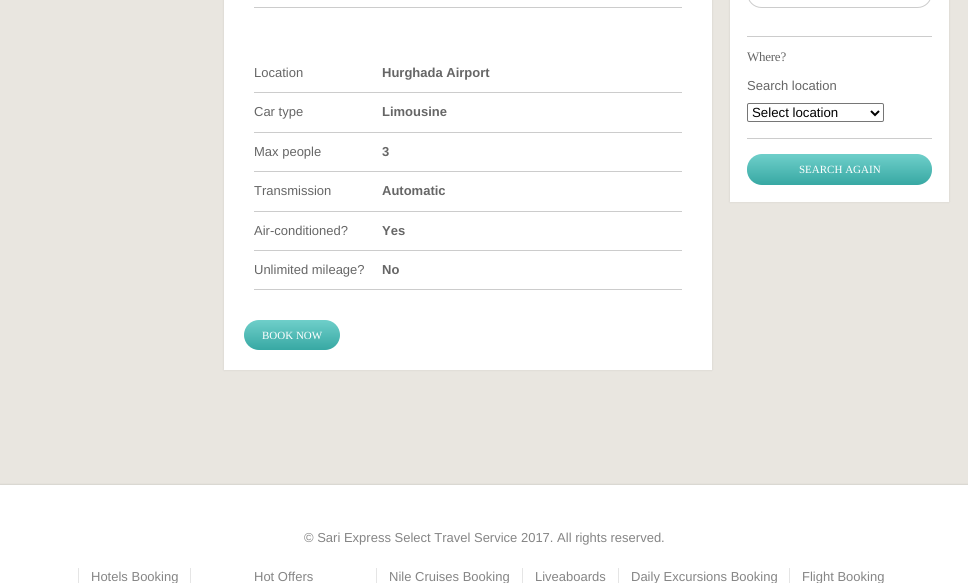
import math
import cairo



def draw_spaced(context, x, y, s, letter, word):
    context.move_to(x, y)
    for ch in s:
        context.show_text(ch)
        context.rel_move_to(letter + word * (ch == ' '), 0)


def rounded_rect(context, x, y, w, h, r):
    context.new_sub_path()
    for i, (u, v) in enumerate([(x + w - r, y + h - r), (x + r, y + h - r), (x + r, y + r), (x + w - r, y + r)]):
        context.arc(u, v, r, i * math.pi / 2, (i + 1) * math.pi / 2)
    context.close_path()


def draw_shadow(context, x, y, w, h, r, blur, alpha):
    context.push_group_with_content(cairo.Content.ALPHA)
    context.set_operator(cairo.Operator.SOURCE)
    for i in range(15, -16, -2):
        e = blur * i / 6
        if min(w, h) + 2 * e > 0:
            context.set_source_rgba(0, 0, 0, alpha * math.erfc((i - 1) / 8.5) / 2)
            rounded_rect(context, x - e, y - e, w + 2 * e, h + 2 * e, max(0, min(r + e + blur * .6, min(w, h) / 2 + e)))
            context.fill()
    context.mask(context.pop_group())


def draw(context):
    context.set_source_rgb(233 / 255, 230 / 255, 224 / 255)
    context.paint()
    context.set_source_rgb(0, 0, 0)
    draw_shadow(context, 224, -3, 488, 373, 0, 1, 0.1)
    context.set_source_rgb(1, 1, 1)
    context.rectangle(224, 0, 488, 370)
    context.fill()
    context.set_source_rgb(204 / 255, 204 / 255, 204 / 255)
    context.rectangle(254, 7, 428, 1)
    context.fill()
    context.rectangle(254, 92, 428, 1)
    context.fill()
    context.rectangle(254, 132, 428, 1)
    context.fill()
    context.rectangle(254, 171, 428, 1)
    context.fill()
    context.rectangle(254, 211, 428, 1)
    context.fill()
    context.rectangle(254, 250, 428, 1)
    context.fill()
    context.rectangle(254, 289, 428, 1)
    context.fill()
    gradient = cairo.LinearGradient(292, 320, 292, 350)
    gradient.add_color_stop_rgba(0, 111 / 255, 207 / 255, 202 / 255, 1)
    gradient.add_color_stop_rgba(1, 55 / 255, 168 / 255, 163 / 255, 1)
    context.set_source(gradient)
    rounded_rect(context, 244, 320, 96, 30, 15)
    context.fill()
    context.set_source_rgb(0, 0, 0)
    draw_shadow(context, 730, -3, 219, 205, 0, 1, 0.1)
    context.set_source_rgb(1, 1, 1)
    context.rectangle(730, 0, 219, 202)
    context.fill()
    context.set_source_rgb(204 / 255, 204 / 255, 204 / 255)
    context.rectangle(747, 138, 185, 1)
    context.fill()
    rounded_rect(context, 747.5, -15.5, 184, 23, 14)
    context.set_line_width(1)
    context.stroke()
    context.rectangle(747, 36, 185, 1)
    context.fill()
    rounded_rect(context, 747.5, 103.5, 136, 18, 1.5)
    context.set_source_rgb(118 / 255, 118 / 255, 118 / 255)
    context.stroke()
    context.new_path()
    context.move_to(871, 111)
    context.line_to(875, 115)
    context.line_to(879, 111)
    context.set_source_rgb(0, 0, 0)
    context.set_line_width(2)
    context.stroke()
    gradient = cairo.LinearGradient(840, 154, 840, 185)
    gradient.add_color_stop_rgba(0, 111 / 255, 207 / 255, 202 / 255, 1)
    gradient.add_color_stop_rgba(1, 55 / 255, 168 / 255, 163 / 255, 1)
    context.set_source(gradient)
    rounded_rect(context, 747, 154, 185, 31, 15)
    context.fill()
    context.set_source_rgb(0, 0, 0)
    draw_shadow(context, 0, 485, 968, 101, 0, 1, 0.2)
    context.set_source_rgb(1, 1, 1)
    context.rectangle(0, 485, 968, 98)
    context.fill()
    context.set_source_rgb(229 / 255, 229 / 255, 229 / 255)
    context.rectangle(78, 568, 1, 15)
    context.fill()
    context.rectangle(190, 568, 1, 15)
    context.fill()
    context.rectangle(376, 568, 1, 15)
    context.fill()
    context.rectangle(522, 568, 1, 15)
    context.fill()
    context.rectangle(618, 568, 1, 15)
    context.fill()
    context.rectangle(789, 568, 1, 15)
    context.fill()
    context.select_font_face("Liberation Sans")
    context.set_font_size(13)
    context.set_source_rgb(102 / 255, 102 / 255, 102 / 255)
    context.move_to(254, 77)
    context.show_text("Location")
    context.select_font_face("Liberation Sans", cairo.FontSlant.NORMAL, cairo.FontWeight.BOLD)
    context.move_to(382, 77)
    context.show_text("Hurghada Airport")
    context.select_font_face("Liberation Sans")
    context.move_to(254, 116)
    context.show_text("Car type")
    context.select_font_face("Liberation Sans", cairo.FontSlant.NORMAL, cairo.FontWeight.BOLD)
    context.move_to(382, 116)
    context.show_text("Limousine")
    context.select_font_face("Liberation Sans")
    context.move_to(254, 156)
    context.show_text("Max people")
    context.select_font_face("Liberation Sans", cairo.FontSlant.NORMAL, cairo.FontWeight.BOLD)
    context.move_to(382, 156)
    context.show_text("3")
    context.select_font_face("Liberation Sans")
    context.move_to(254, 195)
    context.show_text("Transmission")
    context.select_font_face("Liberation Sans", cairo.FontSlant.NORMAL, cairo.FontWeight.BOLD)
    context.move_to(382, 195)
    context.show_text("Automatic")
    context.select_font_face("Liberation Sans")
    context.move_to(254, 235)
    context.show_text("Air-conditioned?")
    context.select_font_face("Liberation Sans", cairo.FontSlant.NORMAL, cairo.FontWeight.BOLD)
    context.move_to(382, 235)
    context.show_text("Yes")
    context.select_font_face("Liberation Sans")
    context.move_to(254, 274)
    context.show_text("Unlimited mileage?")
    context.select_font_face("Liberation Sans", cairo.FontSlant.NORMAL, cairo.FontWeight.BOLD)
    context.move_to(382, 274)
    context.show_text("No")
    context.select_font_face("Liberation Serif")
    context.set_font_size(11)
    context.set_source_rgb(1, 1, 1)
    context.move_to(262, 339)
    context.show_text("BOOK NOW")
    context.set_font_size(13)
    context.set_source_rgb(102 / 255, 102 / 255, 102 / 255)
    draw_spaced(context, 747, 61, "Where?", -0.25, 0)
    context.select_font_face("Liberation Sans")
    context.move_to(747, 90)
    context.show_text("Search location")
    context.set_font_size(13.25)
    context.set_source_rgb(0, 0, 0)
    context.move_to(752, 117)
    context.show_text("Select location")
    context.select_font_face("Liberation Serif")
    context.set_font_size(11)
    context.set_source_rgb(1, 1, 1)
    context.move_to(799, 173)
    context.show_text("SEARCH AGAIN")
    context.select_font_face("Liberation Sans")
    context.set_font_size(13)
    context.set_source_rgb(133 / 255, 133 / 255, 133 / 255)
    context.move_to(304, 542)
    context.show_text("© Sari Express Select Travel Service 2017. All rights reserved.")
    context.move_to(91, 581)
    context.show_text("Hotels Booking")
    context.move_to(254, 581)
    context.show_text("Hot Offers")
    context.move_to(389, 581)
    context.show_text("Nile Cruises Booking")
    context.move_to(535, 581)
    context.show_text("Liveaboards")
    context.move_to(631, 581)
    context.show_text("Daily Excursions Booking")
    context.move_to(802, 581)
    context.show_text("Flight Booking")


surface = cairo.ImageSurface(cairo.Format.RGB24, 968, 583)
context = cairo.Context(surface)
options = cairo.FontOptions()
options.set_hint_metrics(cairo.HintMetrics.OFF)
options.set_hint_style(cairo.HintStyle.NONE)
context.set_font_options(options)
context.set_miter_limit(4)
draw(context)
surface.write_to_png("out.png")
